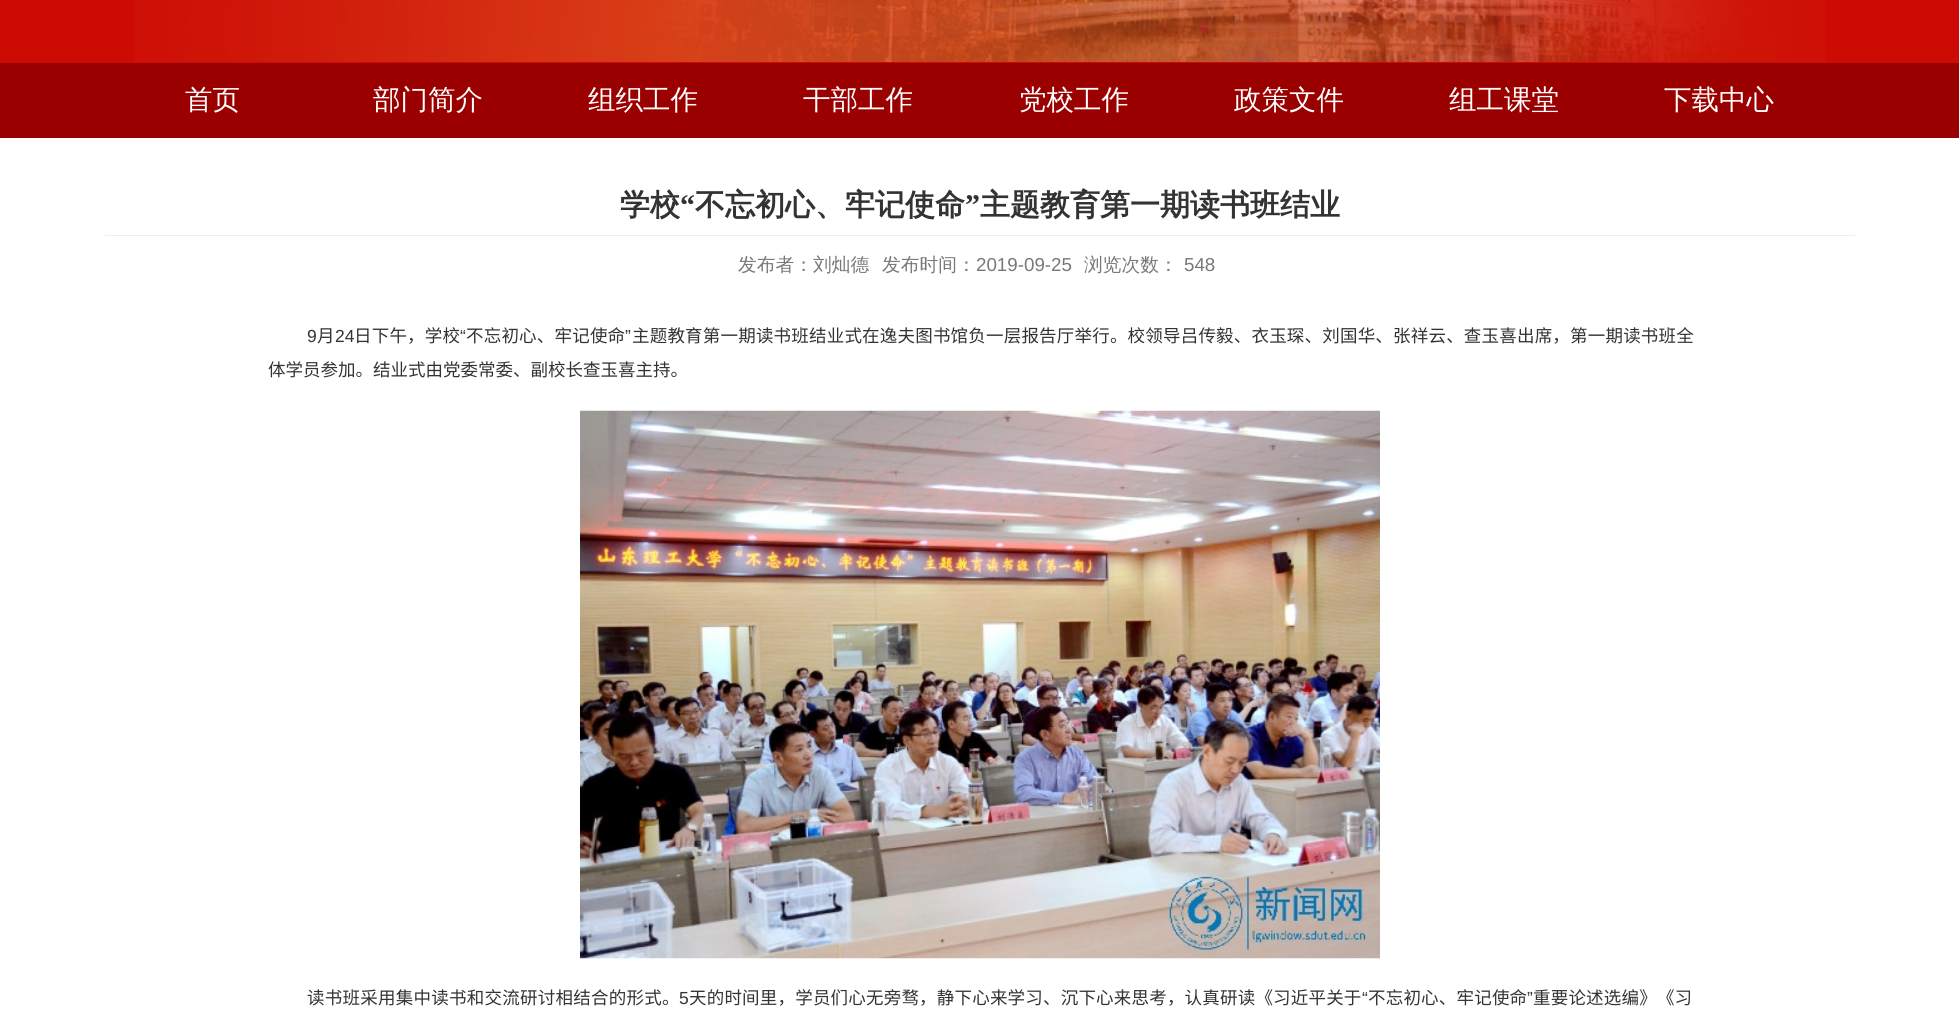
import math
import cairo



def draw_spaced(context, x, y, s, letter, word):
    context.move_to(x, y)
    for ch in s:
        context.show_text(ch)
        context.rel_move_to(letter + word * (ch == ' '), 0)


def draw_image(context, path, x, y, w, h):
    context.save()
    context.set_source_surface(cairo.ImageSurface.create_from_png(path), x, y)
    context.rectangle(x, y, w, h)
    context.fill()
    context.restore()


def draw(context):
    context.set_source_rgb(1, 1, 1)
    context.paint()
    context.set_source_rgb(205 / 255, 11 / 255, 4 / 255)
    context.rectangle(0, 0, 1959, 63)
    context.fill()
    draw_image(context, "images/1.png", 134, 0, 1692, 62)
    context.set_source_rgb(155 / 255, 0, 0)
    context.rectangle(0, 63, 1959, 75)
    context.fill()
    context.set_source_rgb(236 / 255, 236 / 255, 236 / 255)
    context.rectangle(105, 235, 1750, 1)
    context.fill()
    draw_image(context, "images/2.png", 580, 410, 800, 549)
    context.select_font_face("WenQuanYi Zen Hei Medium")
    context.set_font_size(27.5)
    context.set_source_rgb(1, 1, 1)
    context.move_to(185, 109)
    context.show_text("首页")
    context.move_to(373, 109)
    context.show_text("部门简介")
    context.move_to(588, 109)
    context.show_text("组织工作")
    context.move_to(803, 109)
    context.show_text("干部工作")
    context.move_to(1019, 109)
    context.show_text("党校工作")
    context.move_to(1234, 109)
    context.show_text("政策文件")
    context.move_to(1449, 109)
    context.show_text("组工课堂")
    context.move_to(1664, 109)
    context.show_text("下载中心")
    context.select_font_face("WenQuanYi Zen Hei", cairo.FontSlant.NORMAL, cairo.FontWeight.BOLD)
    context.set_font_size(30)
    context.set_source_rgb(51 / 255, 51 / 255, 51 / 255)
    context.move_to(620, 215)
    context.show_text("学校")
    context.select_font_face("Liberation Serif", cairo.FontSlant.NORMAL, cairo.FontWeight.BOLD)
    context.move_to(680, 215)
    context.show_text("“")
    context.select_font_face("WenQuanYi Zen Hei", cairo.FontSlant.NORMAL, cairo.FontWeight.BOLD)
    context.move_to(695, 215)
    context.show_text("不忘初心、牢记使命")
    context.select_font_face("Liberation Serif", cairo.FontSlant.NORMAL, cairo.FontWeight.BOLD)
    context.move_to(965, 215)
    context.show_text("”")
    context.select_font_face("WenQuanYi Zen Hei", cairo.FontSlant.NORMAL, cairo.FontWeight.BOLD)
    context.move_to(980, 215)
    context.show_text("主题教育第一期读书班结业")
    context.select_font_face("WenQuanYi Zen Hei Medium")
    context.set_font_size(18.75)
    context.set_source_rgb(120 / 255, 120 / 255, 120 / 255)
    context.move_to(738, 271)
    context.show_text("发布者：刘灿德")
    context.move_to(882, 271)
    context.show_text("发布时间：")
    context.select_font_face("Liberation Sans")
    context.move_to(976, 271)
    context.show_text("2019-09-25")
    context.select_font_face("WenQuanYi Zen Hei Medium")
    context.move_to(1084, 271)
    context.show_text("浏览次数：")
    context.select_font_face("Liberation Sans")
    context.move_to(1184, 271)
    context.show_text("548")
    context.set_font_size(17.5)
    context.set_source_rgb(51 / 255, 51 / 255, 51 / 255)
    context.move_to(307, 342)
    context.show_text("9")
    context.select_font_face("Noto Sans CJK SC")
    context.move_to(317, 342)
    context.show_text("月")
    context.select_font_face("Liberation Sans")
    context.move_to(335, 342)
    context.show_text("24")
    context.select_font_face("Noto Sans CJK SC")
    draw_spaced(context, 354, 342, "日下午，学校", 0.2, 0)
    context.select_font_face("Liberation Sans")
    draw_spaced(context, 460, 342, "“", 0.2, 0)
    context.select_font_face("Noto Sans CJK SC")
    draw_spaced(context, 466, 342, "不忘初心、牢记使命", 0.2, 0)
    context.select_font_face("Liberation Sans")
    draw_spaced(context, 625, 342, "”", 0.2, 0)
    context.select_font_face("Noto Sans CJK SC")
    draw_spaced(context, 632, 342, "主题教育第一期读书班结业式在逸夫图书馆负一层报告厅举行。校领导吕传毅、衣玉琛、刘国华、张祥云、查玉喜出席，第一期读书班全", 0.2, 0)
    context.move_to(268, 376)
    context.show_text("体学员参加。结业式由党委常委、副校长查玉喜主持。")
    draw_spaced(context, 307, 1004, "读书班采用集中读书和交流研讨相结合的形式。", 0.25, 0)
    context.select_font_face("Liberation Sans")
    context.move_to(679, 1004)
    context.show_text("5")
    context.select_font_face("Noto Sans CJK SC")
    draw_spaced(context, 689, 1004, "天的时间里，学员们心无旁骛，静下心来学习、沉下心来思考，认真研读《习近平关于", 0.2, 0)
    context.select_font_face("Liberation Sans")
    draw_spaced(context, 1362, 1004, "“", 0.2, 0)
    context.select_font_face("Noto Sans CJK SC")
    draw_spaced(context, 1368, 1004, "不忘初心、牢记使命", 0.2, 0)
    context.select_font_face("Liberation Sans")
    draw_spaced(context, 1527, 1004, "”", 0.2, 0)
    context.select_font_face("Noto Sans CJK SC")
    draw_spaced(context, 1533, 1004, "重要论述选编》《习", 0.2, 0)


surface = cairo.ImageSurface(cairo.Format.RGB24, 1959, 1014)
context = cairo.Context(surface)
options = cairo.FontOptions()
options.set_hint_metrics(cairo.HintMetrics.OFF)
options.set_hint_style(cairo.HintStyle.NONE)
context.set_font_options(options)
context.set_miter_limit(4)
draw(context)
surface.write_to_png("out.png")
